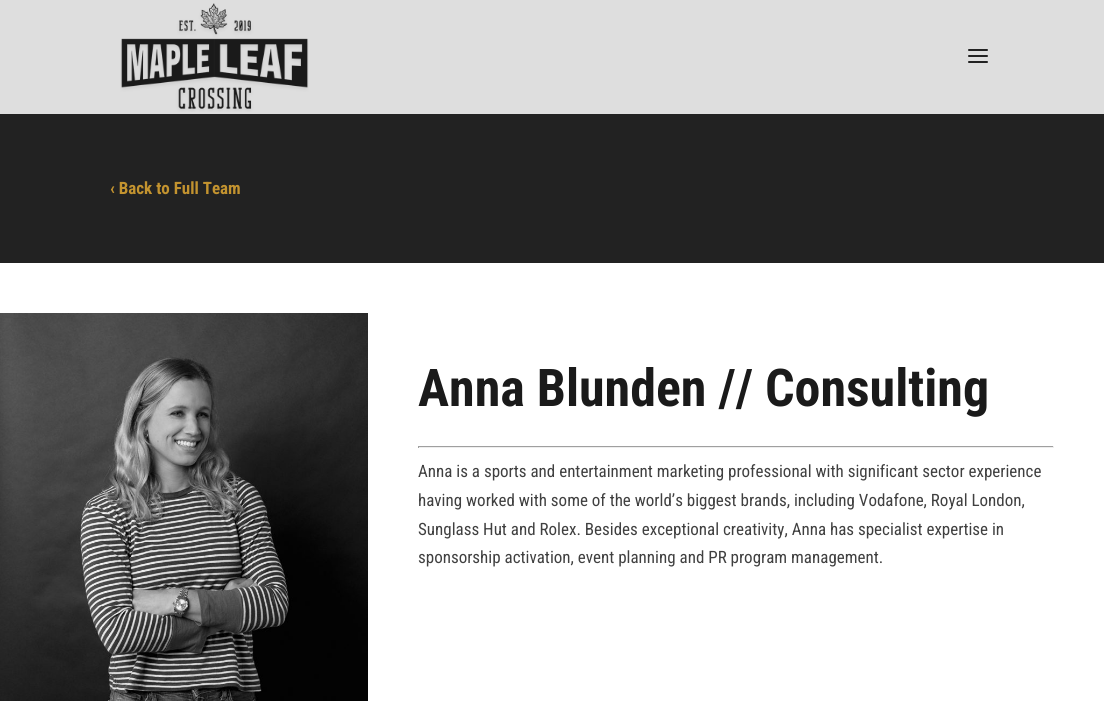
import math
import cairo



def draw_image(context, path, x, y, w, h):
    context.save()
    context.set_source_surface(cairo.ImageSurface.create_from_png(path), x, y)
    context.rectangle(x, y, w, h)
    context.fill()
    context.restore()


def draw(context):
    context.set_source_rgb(1, 1, 1)
    context.paint()
    context.set_source_rgb(222 / 255, 222 / 255, 222 / 255)
    context.rectangle(0, 0, 1104, 114)
    context.fill()
    draw_image(context, "images/1.png", 120, 3, 189, 109)
    draw_image(context, "images/2.png", 968, 49, 20, 14)
    context.set_source_rgb(34 / 255, 34 / 255, 34 / 255)
    context.rectangle(0, 114, 1104, 149)
    context.fill()
    draw_image(context, "images/3.png", 0, 313, 368, 388)
    context.set_source_rgb(159 / 255, 159 / 255, 159 / 255)
    context.rectangle(418, 446, 636, 1)
    context.fill()
    context.set_source_rgb(238 / 255, 238 / 255, 238 / 255)
    context.rectangle(1053, 446, 1, 2)
    context.fill()
    context.rectangle(418, 447, 636, 1)
    context.fill()
    context.set_source_rgb(159 / 255, 159 / 255, 159 / 255)
    context.rectangle(418, 446, 1, 2)
    context.fill()
    context.select_font_face("Roboto Condensed", cairo.FontSlant.NORMAL, cairo.FontWeight.BOLD)
    context.set_font_size(17)
    context.set_source_rgb(195 / 255, 147 / 255, 47 / 255)
    context.move_to(110, 194)
    context.show_text("‹ Back to Full Team")
    context.set_font_size(52)
    context.set_source_rgb(26 / 255, 26 / 255, 26 / 255)
    context.move_to(418, 406)
    context.show_text("Anna Blunden // Consulting")
    context.select_font_face("Roboto Condensed")
    context.set_font_size(17)
    context.set_source_rgb(64 / 255, 64 / 255, 64 / 255)
    context.move_to(418, 477)
    context.show_text("Anna is a sports and entertainment marketing professional with significant sector experience")
    context.move_to(418, 506)
    context.show_text("having worked with some of the world’s biggest brands, including Vodafone, Royal London,")
    context.move_to(418, 535)
    context.show_text("Sunglass Hut and Rolex. Besides exceptional creativity, Anna has specialist expertise in")
    context.move_to(418, 563)
    context.show_text("sponsorship activation, event planning and PR program management.")


surface = cairo.ImageSurface(cairo.Format.RGB24, 1104, 701)
context = cairo.Context(surface)
options = cairo.FontOptions()
options.set_hint_metrics(cairo.HintMetrics.OFF)
options.set_hint_style(cairo.HintStyle.NONE)
context.set_font_options(options)
context.set_miter_limit(4)
draw(context)
surface.write_to_png("out.png")
